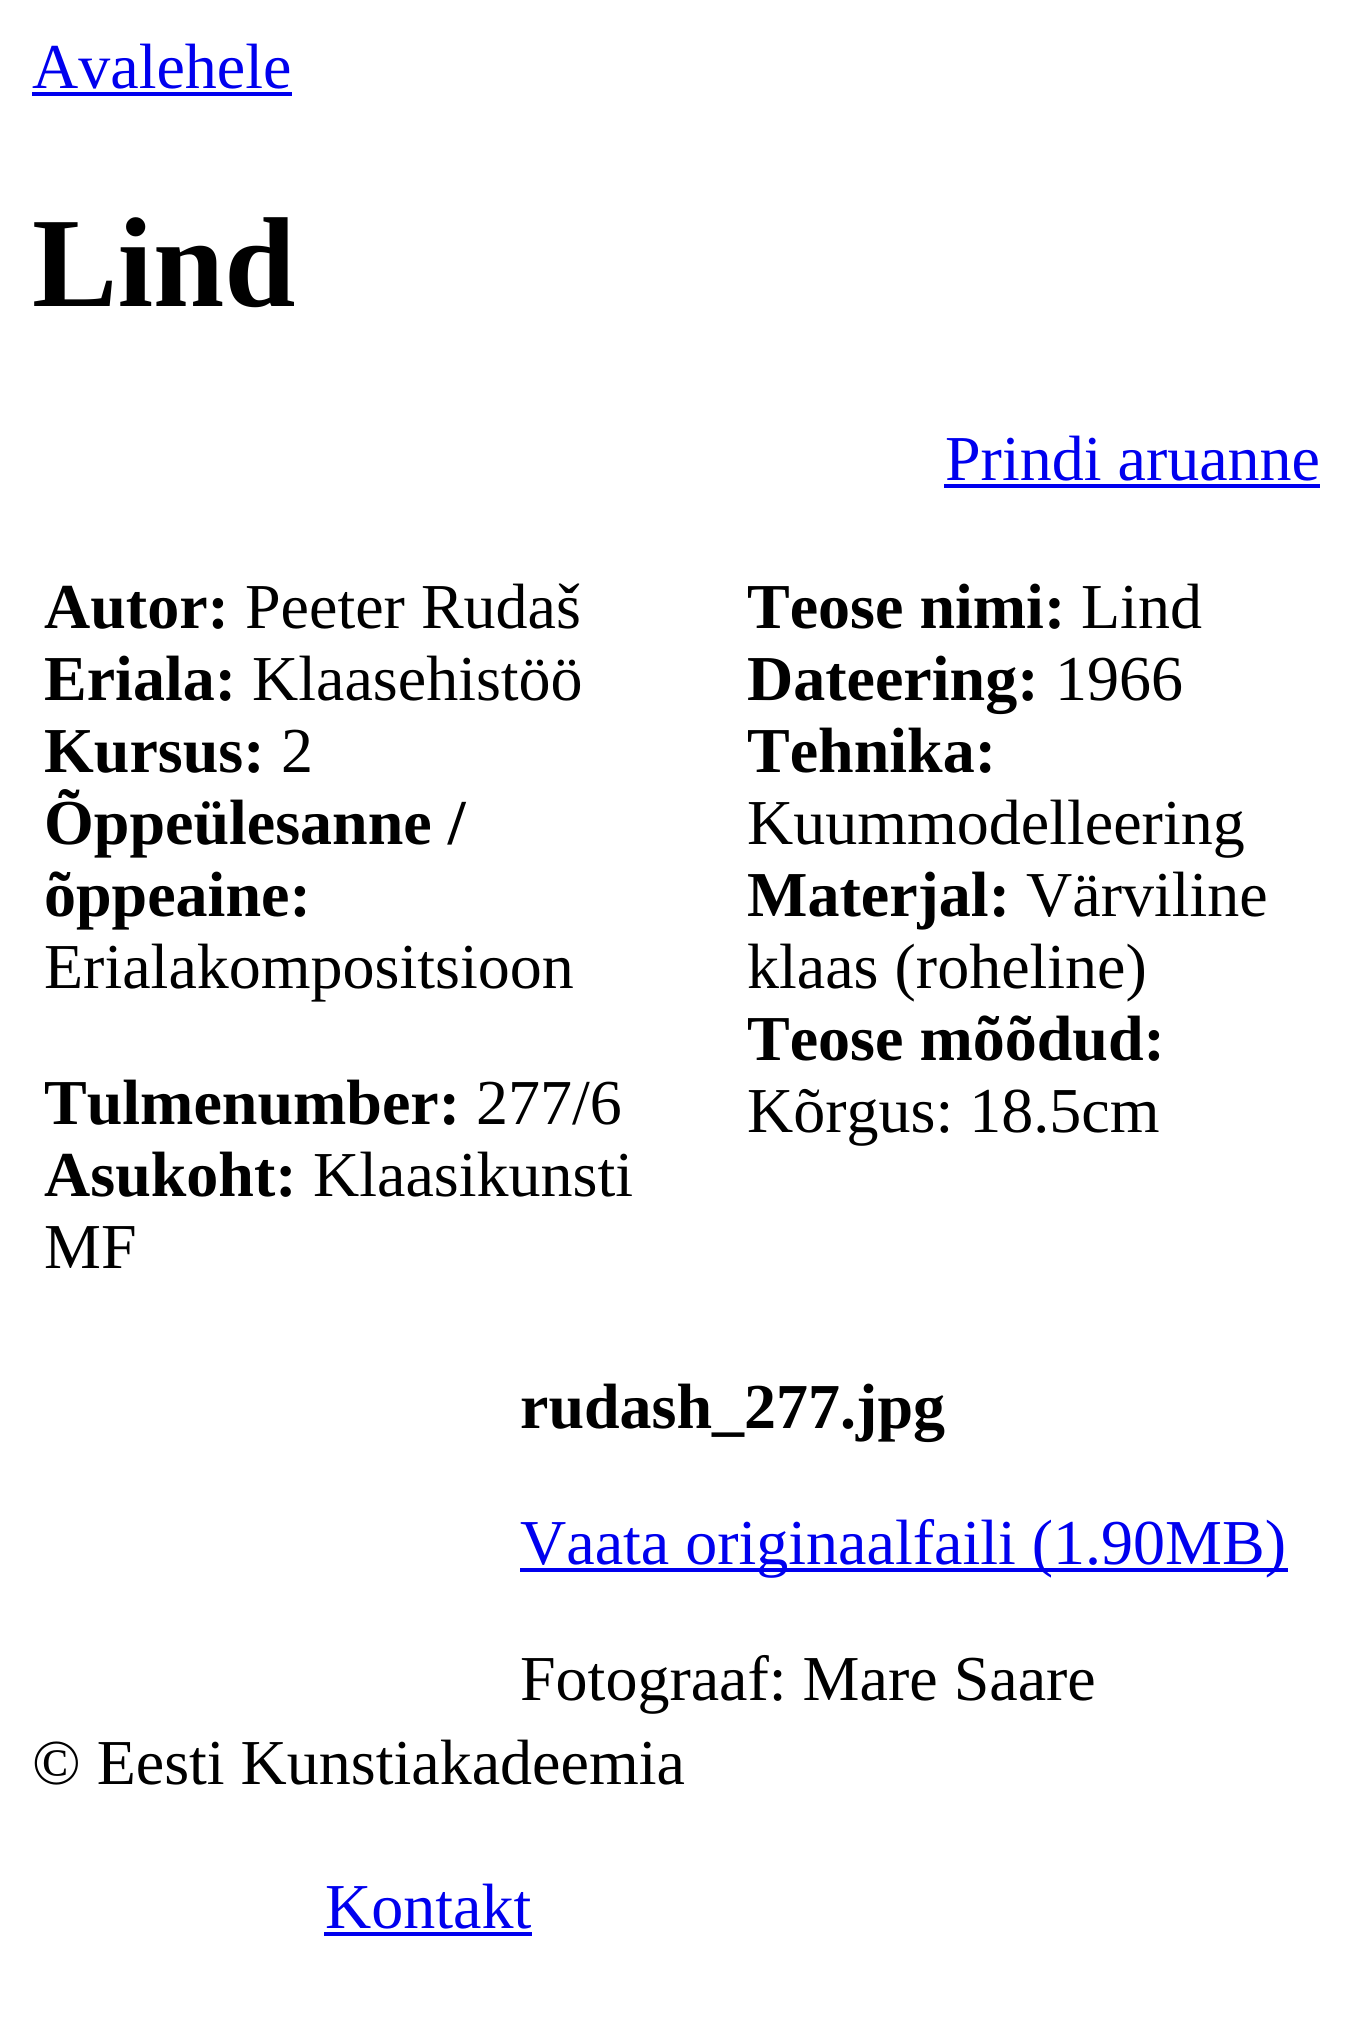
import math
import cairo



def draw(context):
    context.set_source_rgb(1, 1, 1)
    context.paint()
    context.set_source_rgb(0, 0, 238 / 255)
    context.rectangle(32, 92, 260, 4)
    context.fill()
    context.rectangle(944, 484, 376, 4)
    context.fill()
    context.rectangle(520, 1568, 768, 4)
    context.fill()
    context.rectangle(324, 1932, 208, 4)
    context.fill()
    context.select_font_face("Liberation Serif")
    context.set_font_size(64)
    context.move_to(32, 88)
    context.show_text("Avalehele")
    context.select_font_face("Liberation Serif", cairo.FontSlant.NORMAL, cairo.FontWeight.BOLD)
    context.set_font_size(128)
    context.set_source_rgb(0, 0, 0)
    context.move_to(32, 306)
    context.show_text("Lind")
    context.select_font_face("Liberation Serif")
    context.set_font_size(64)
    context.set_source_rgb(0, 0, 238 / 255)
    context.move_to(945, 480)
    context.show_text("Prindi aruanne")
    context.select_font_face("Liberation Serif", cairo.FontSlant.NORMAL, cairo.FontWeight.BOLD)
    context.set_source_rgb(0, 0, 0)
    context.move_to(44, 628)
    context.show_text("Autor:")
    context.select_font_face("Liberation Serif")
    context.move_to(245, 628)
    context.show_text("Peeter Rudaš")
    context.select_font_face("Liberation Serif", cairo.FontSlant.NORMAL, cairo.FontWeight.BOLD)
    context.move_to(44, 700)
    context.show_text("Eriala:")
    context.select_font_face("Liberation Serif")
    context.move_to(252, 700)
    context.show_text("Klaasehistöö")
    context.select_font_face("Liberation Serif", cairo.FontSlant.NORMAL, cairo.FontWeight.BOLD)
    context.move_to(44, 772)
    context.show_text("Kursus:")
    context.select_font_face("Liberation Serif")
    context.move_to(281, 772)
    context.show_text("2")
    context.select_font_face("Liberation Serif", cairo.FontSlant.NORMAL, cairo.FontWeight.BOLD)
    context.move_to(44, 844)
    context.show_text("Õppeülesanne /")
    context.move_to(44, 916)
    context.show_text("õppeaine:")
    context.select_font_face("Liberation Serif")
    context.move_to(44, 988)
    context.show_text("Erialakompositsioon")
    context.select_font_face("Liberation Serif", cairo.FontSlant.NORMAL, cairo.FontWeight.BOLD)
    context.move_to(44, 1124)
    context.show_text("Tulmenumber:")
    context.select_font_face("Liberation Serif")
    context.move_to(476, 1124)
    context.show_text("277/6")
    context.select_font_face("Liberation Serif", cairo.FontSlant.NORMAL, cairo.FontWeight.BOLD)
    context.move_to(44, 1196)
    context.show_text("Asukoht:")
    context.select_font_face("Liberation Serif")
    context.move_to(313, 1196)
    context.show_text("Klaasikunsti")
    context.move_to(44, 1268)
    context.show_text("MF")
    context.select_font_face("Liberation Serif", cairo.FontSlant.NORMAL, cairo.FontWeight.BOLD)
    context.move_to(747, 628)
    context.show_text("Teose nimi:")
    context.select_font_face("Liberation Serif")
    context.move_to(1081, 628)
    context.show_text("Lind")
    context.select_font_face("Liberation Serif", cairo.FontSlant.NORMAL, cairo.FontWeight.BOLD)
    context.move_to(747, 700)
    context.show_text("Dateering:")
    context.select_font_face("Liberation Serif")
    context.move_to(1055, 700)
    context.show_text("1966")
    context.select_font_face("Liberation Serif", cairo.FontSlant.NORMAL, cairo.FontWeight.BOLD)
    context.move_to(747, 772)
    context.show_text("Tehnika:")
    context.select_font_face("Liberation Serif")
    context.move_to(747, 844)
    context.show_text("Kuummodelleering")
    context.select_font_face("Liberation Serif", cairo.FontSlant.NORMAL, cairo.FontWeight.BOLD)
    context.move_to(747, 916)
    context.show_text("Materjal:")
    context.select_font_face("Liberation Serif")
    context.move_to(1026, 916)
    context.show_text("Värviline")
    context.move_to(747, 988)
    context.show_text("klaas (roheline)")
    context.select_font_face("Liberation Serif", cairo.FontSlant.NORMAL, cairo.FontWeight.BOLD)
    context.move_to(747, 1060)
    context.show_text("Teose mõõdud:")
    context.select_font_face("Liberation Serif")
    context.move_to(747, 1132)
    context.show_text("Kõrgus: 18.5cm")
    context.select_font_face("Liberation Serif", cairo.FontSlant.NORMAL, cairo.FontWeight.BOLD)
    context.move_to(520, 1428)
    context.show_text("rudash_277.jpg")
    context.select_font_face("Liberation Serif")
    context.set_source_rgb(0, 0, 238 / 255)
    context.move_to(520, 1564)
    context.show_text("Vaata originaalfaili (1.90MB)")
    context.set_source_rgb(0, 0, 0)
    context.move_to(520, 1700)
    context.show_text("Fotograaf: Mare Saare")
    context.move_to(32, 1784)
    context.show_text("© Eesti Kunstiakadeemia")
    context.set_source_rgb(0, 0, 238 / 255)
    context.move_to(325, 1928)
    context.show_text("Kontakt")


surface = cairo.ImageSurface(cairo.Format.RGB24, 1350, 2037)
context = cairo.Context(surface)
options = cairo.FontOptions()
options.set_hint_metrics(cairo.HintMetrics.OFF)
options.set_hint_style(cairo.HintStyle.NONE)
context.set_font_options(options)
context.set_miter_limit(4)
draw(context)
surface.write_to_png("out.png")
